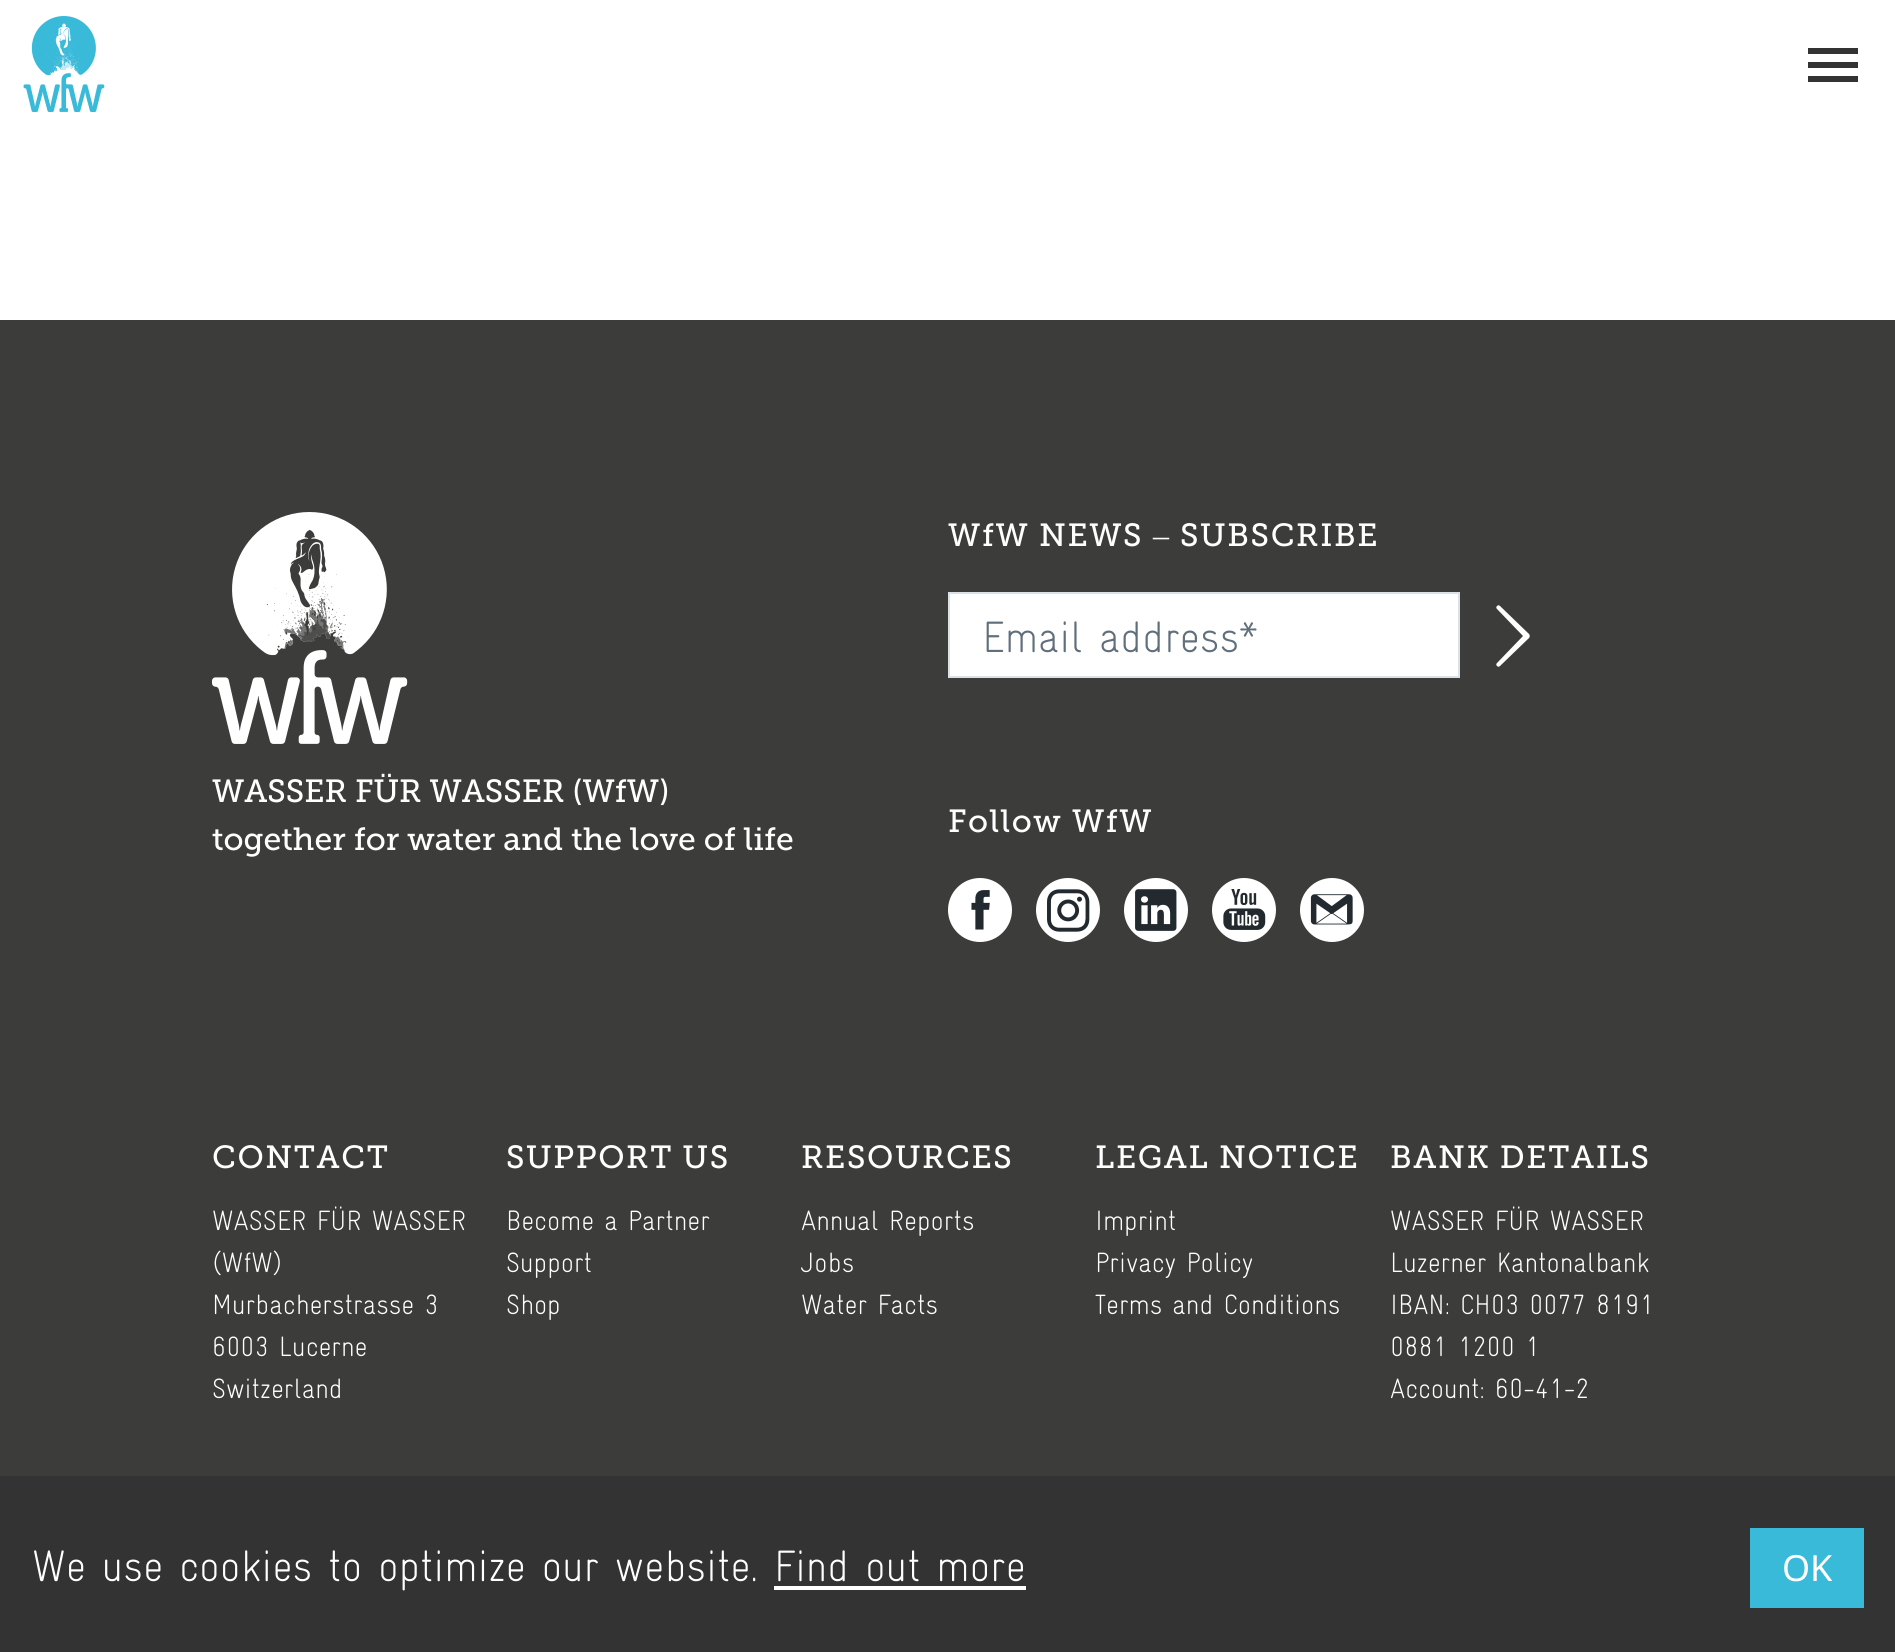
import math
import cairo



def draw_spaced(context, x, y, s, letter, word):
    context.move_to(x, y)
    for ch in s:
        context.show_text(ch)
        context.rel_move_to(letter + word * (ch == ' '), 0)


def draw_image(context, path, x, y, w, h):
    context.save()
    context.set_source_surface(cairo.ImageSurface.create_from_png(path), x, y)
    context.rectangle(x, y, w, h)
    context.fill()
    context.restore()


def draw(context):
    context.set_source_rgb(1, 1, 1)
    context.paint()
    draw_image(context, "images/1.png", 23, 16, 82, 96)
    context.set_source_rgb(51 / 255, 51 / 255, 51 / 255)
    context.rectangle(1808, 62, 50, 6)
    context.fill()
    context.rectangle(1808, 48, 50, 6)
    context.fill()
    context.rectangle(1808, 76, 50, 6)
    context.fill()
    context.set_source_rgb(60 / 255, 60 / 255, 59 / 255)
    context.rectangle(0, 320, 1895, 1156)
    context.fill()
    draw_image(context, "images/2.png", 212, 512, 196, 232)
    context.set_source_rgb(1, 1, 1)
    context.rectangle(949, 593, 510, 84)
    context.fill_preserve()
    context.set_source_rgb(218 / 255, 225 / 255, 231 / 255)
    context.stroke()
    context.set_source_rgb(1, 1, 1)
    context.new_path()
    context.move_to(1497, 663)
    context.curve_to(1496, 664, 1496, 665, 1497, 666)
    context.curve_to(1498, 667, 1499, 667, 1500, 666)
    context.line_to(1529, 638)
    context.curve_to(1530, 637, 1530, 635, 1529, 634)
    context.line_to(1500, 606)
    context.curve_to(1499, 605, 1498, 605, 1497, 606)
    context.curve_to(1496, 607, 1496, 608, 1497, 609)
    context.line_to(1523, 636)
    context.close_path()
    context.fill()
    context.arc(980, 910, 32, 0, 2 * math.pi)
    context.fill()
    draw_image(context, "images/3.png", 971, 890, 19, 40)
    context.arc(1068, 910, 32, 0, 2 * math.pi)
    context.fill()
    draw_image(context, "images/4.png", 1047, 889, 43, 43)
    context.arc(1156, 910, 32, 0, 2 * math.pi)
    context.fill()
    draw_image(context, "images/5.png", 1135, 889, 42, 42)
    context.arc(1244, 910, 32, 0, 2 * math.pi)
    context.fill()
    draw_image(context, "images/6.png", 1223, 889, 43, 41)
    context.arc(1332, 910, 32, 0, 2 * math.pi)
    context.fill()
    draw_image(context, "images/7.png", 1310, 894, 43, 31)
    context.set_source_rgb(51 / 255, 51 / 255, 51 / 255)
    context.rectangle(0, 1476, 1895, 176)
    context.fill()
    context.set_source_rgb(1, 1, 1)
    context.rectangle(774, 1586, 252, 4)
    context.fill()
    context.set_source_rgb(58 / 255, 186 / 255, 217 / 255)
    context.rectangle(1750, 1528, 114, 80)
    context.fill()
    context.select_font_face("Museo Slab")
    context.set_font_size(32)
    context.set_source_rgb(1, 1, 1)
    context.move_to(212, 802)
    context.show_text("WASSER FÜR WASSER (WfW)")
    context.move_to(212, 850)
    context.show_text("together for water and the love of life")
    draw_spaced(context, 948, 546, "WfW NEWS", 1.6, 0)
    context.select_font_face("Liberation Serif")
    draw_spaced(context, 1153, 546, "–", 1.6, 0)
    context.select_font_face("Museo Slab")
    draw_spaced(context, 1180, 546, "SUBSCRIBE", 1.6, 0)
    context.select_font_face("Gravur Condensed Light")
    context.set_font_size(44)
    context.set_source_rgb(96 / 255, 111 / 255, 123 / 255)
    context.move_to(982, 652)
    context.show_text("Email address*")
    context.select_font_face("Museo Slab")
    context.set_font_size(32)
    context.set_source_rgb(1, 1, 1)
    draw_spaced(context, 948, 832, "Follow WfW", 1.6, 0)
    draw_spaced(context, 212, 1168, "CONTACT", 1.6, 0)
    context.select_font_face("Gravur Condensed Light")
    context.set_font_size(28)
    context.move_to(212, 1230)
    context.show_text("WASSER FÜR WASSER")
    context.move_to(212, 1272)
    context.show_text("(WfW)")
    context.move_to(212, 1314)
    context.show_text("Murbacherstrasse 3")
    context.move_to(212, 1356)
    context.show_text("6003 Lucerne")
    context.move_to(212, 1398)
    context.show_text("Switzerland")
    context.select_font_face("Museo Slab")
    context.set_font_size(32)
    draw_spaced(context, 506, 1168, "SUPPORT US", 1.6, 0)
    context.select_font_face("Gravur Condensed Light")
    context.set_font_size(28)
    context.move_to(506, 1230)
    context.show_text("Become a Partner")
    context.move_to(506, 1272)
    context.show_text("Support")
    context.move_to(506, 1314)
    context.show_text("Shop")
    context.select_font_face("Museo Slab")
    context.set_font_size(32)
    draw_spaced(context, 801, 1168, "RESOURCES", 1.6, 0)
    context.select_font_face("Gravur Condensed Light")
    context.set_font_size(28)
    context.move_to(801, 1230)
    context.show_text("Annual Reports")
    context.move_to(801, 1272)
    context.show_text("Jobs")
    context.move_to(801, 1314)
    context.show_text("Water Facts")
    context.select_font_face("Museo Slab")
    context.set_font_size(32)
    draw_spaced(context, 1095, 1168, "LEGAL NOTICE", 1.6, 0)
    context.select_font_face("Gravur Condensed Light")
    context.set_font_size(28)
    context.move_to(1095, 1230)
    context.show_text("Imprint")
    context.move_to(1095, 1272)
    context.show_text("Privacy Policy")
    context.move_to(1095, 1314)
    context.show_text("Terms and Conditions")
    context.select_font_face("Museo Slab")
    context.set_font_size(32)
    draw_spaced(context, 1390, 1168, "BANK DETAILS", 1.6, 0)
    context.select_font_face("Gravur Condensed Light")
    context.set_font_size(28)
    context.move_to(1390, 1230)
    context.show_text("WASSER FÜR WASSER")
    context.move_to(1390, 1272)
    context.show_text("Luzerner Kantonalbank")
    context.move_to(1390, 1314)
    context.show_text("IBAN: CH03 0077 8191")
    context.move_to(1390, 1356)
    context.show_text("0881 1200 1")
    context.move_to(1390, 1398)
    context.show_text("Account: 60-41-2")
    context.set_font_size(44)
    context.move_to(32, 1581)
    context.show_text("We use cookies to optimize our website. Find out more")
    context.select_font_face("Noto Sans")
    context.set_font_size(36)
    context.move_to(1782, 1581)
    context.show_text("OK")


surface = cairo.ImageSurface(cairo.Format.RGB24, 1895, 1652)
context = cairo.Context(surface)
options = cairo.FontOptions()
options.set_hint_metrics(cairo.HintMetrics.OFF)
options.set_hint_style(cairo.HintStyle.NONE)
context.set_font_options(options)
context.set_miter_limit(4)
draw(context)
surface.write_to_png("out.png")
